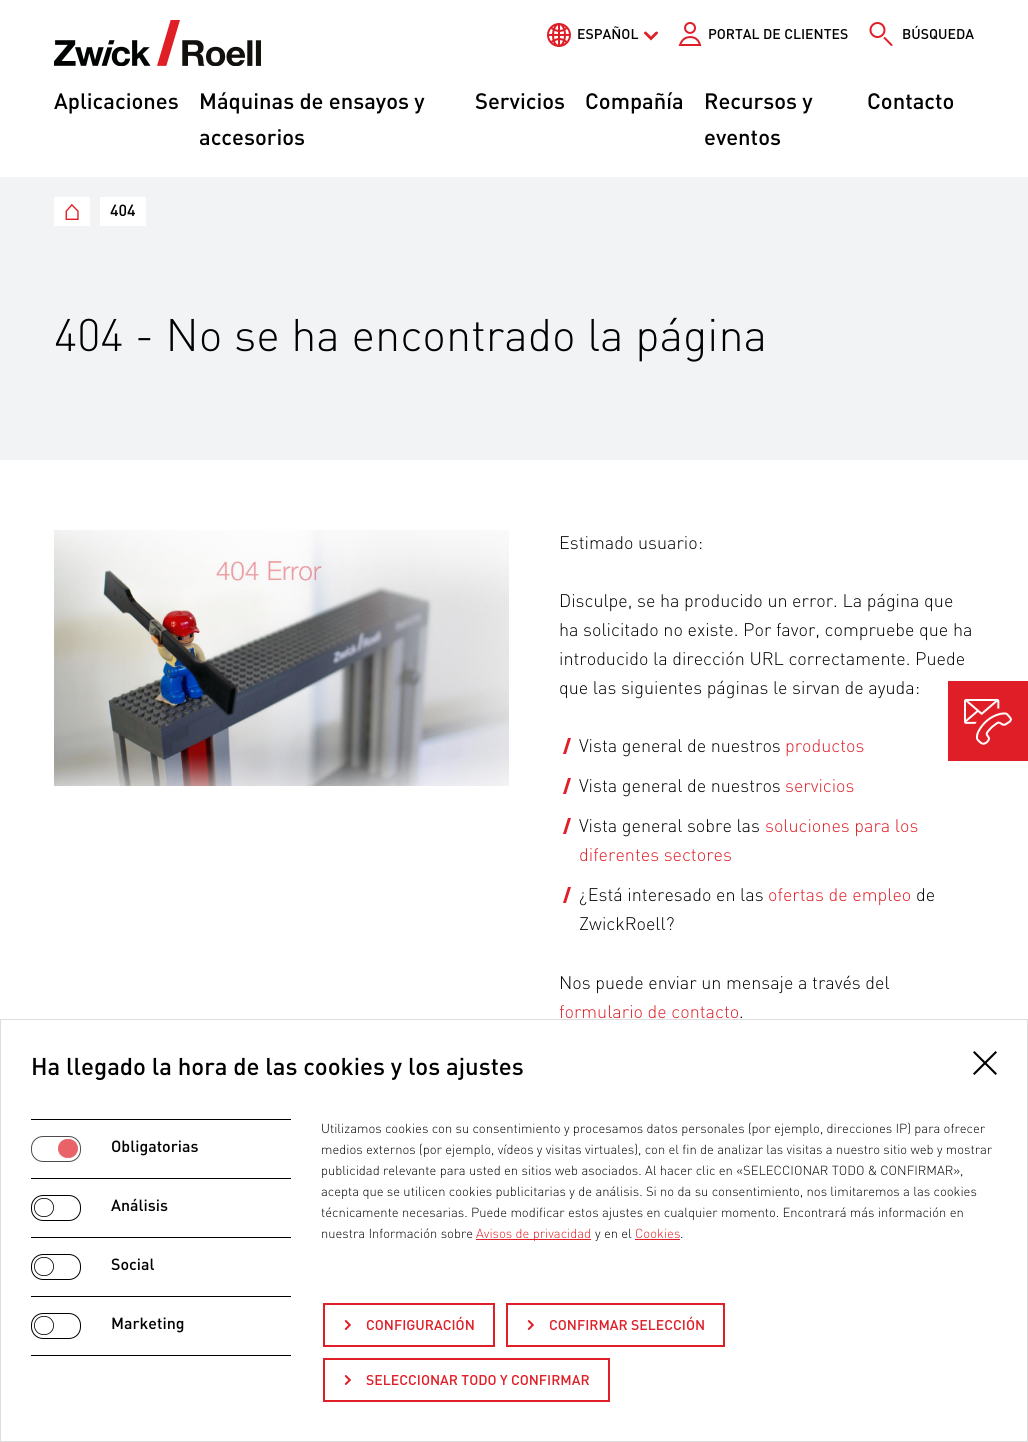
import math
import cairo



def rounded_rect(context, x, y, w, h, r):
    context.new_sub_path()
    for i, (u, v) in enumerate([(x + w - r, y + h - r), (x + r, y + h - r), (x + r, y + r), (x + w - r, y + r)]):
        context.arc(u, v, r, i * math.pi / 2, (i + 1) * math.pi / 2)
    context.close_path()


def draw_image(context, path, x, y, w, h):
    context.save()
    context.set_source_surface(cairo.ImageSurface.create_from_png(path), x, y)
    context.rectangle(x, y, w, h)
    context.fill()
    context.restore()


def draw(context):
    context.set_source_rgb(1, 1, 1)
    context.paint()
    draw_image(context, "images/1.png", 54, 20, 207, 46)
    draw_image(context, "images/2.png", 547, 23, 24, 24)
    draw_image(context, "images/3.png", 644, 31, 14, 10)
    draw_image(context, "images/4.png", 678, 22, 24, 24)
    draw_image(context, "images/5.png", 869, 22, 24, 24)
    context.set_source_rgb(242 / 255, 243 / 255, 244 / 255)
    context.rectangle(0, 177, 1028, 283)
    context.fill()
    context.set_source_rgb(1, 1, 1)
    context.rectangle(54, 197, 36, 29)
    context.fill()
    draw_image(context, "images/6.png", 65, 203, 14, 17)
    context.rectangle(100, 197, 46, 29)
    context.fill()
    draw_image(context, "images/7.png", 54, 530, 455, 256)
    context.set_source_rgb(223 / 255, 30 / 255, 39 / 255)
    context.new_path()
    context.move_to(566, 754)
    context.line_to(571, 738)
    context.line_to(568, 738)
    context.line_to(563, 754)
    context.close_path()
    context.fill()
    context.new_path()
    context.move_to(566, 794)
    context.line_to(571, 778)
    context.line_to(568, 778)
    context.line_to(563, 794)
    context.close_path()
    context.fill()
    context.new_path()
    context.move_to(566, 834)
    context.line_to(571, 818)
    context.line_to(568, 818)
    context.line_to(563, 834)
    context.close_path()
    context.fill()
    context.new_path()
    context.move_to(566, 903)
    context.line_to(571, 887)
    context.line_to(568, 887)
    context.line_to(563, 903)
    context.close_path()
    context.fill()
    context.rectangle(948, 681, 80, 80)
    context.fill()
    draw_image(context, "images/8.png", 964, 699, 48, 46)
    context.rectangle(0.5, 1019.5, 1027, 422)
    context.set_source_rgb(221 / 255, 221 / 255, 221 / 255)
    context.set_line_width(1)
    context.stroke()
    context.set_source_rgb(0, 0, 0)
    context.new_path()
    context.move_to(997, 1052.5)
    context.line_to(986.5, 1063)
    context.line_to(997, 1073.5)
    context.line_to(995.5, 1075)
    context.line_to(985, 1064.5)
    context.line_to(974.5, 1075)
    context.line_to(973, 1073.5)
    context.line_to(983.5, 1063)
    context.line_to(973, 1052.5)
    context.line_to(974.5, 1051)
    context.line_to(985, 1061.5)
    context.line_to(995.5, 1051)
    context.close_path()
    context.fill()
    context.rectangle(31, 1119, 260, 1)
    context.fill()
    rounded_rect(context, 31.5, 1136.5, 49, 25, 11.5)
    context.set_source_rgb(77 / 255, 77 / 255, 77 / 255)
    context.stroke()
    context.set_source_rgb(233 / 255, 98 / 255, 104 / 255)
    rounded_rect(context, 58.4, 1139.4, 19.2, 18.2, 9.1)
    context.fill_preserve()
    context.set_line_width(0.8)
    context.stroke()
    context.set_source_rgb(0, 0, 0)
    context.rectangle(31, 1178, 260, 1)
    context.fill()
    rounded_rect(context, 31.5, 1195.5, 49, 25, 11.5)
    context.set_line_width(1)
    context.stroke()
    rounded_rect(context, 34.4, 1198.4, 19.2, 18.2, 9.1)
    context.set_line_width(0.8)
    context.stroke()
    context.rectangle(31, 1237, 260, 1)
    context.fill()
    rounded_rect(context, 31.5, 1254.5, 49, 25, 11.5)
    context.set_line_width(1)
    context.stroke()
    rounded_rect(context, 34.4, 1257.4, 19.2, 18.2, 9.1)
    context.set_line_width(0.8)
    context.stroke()
    context.rectangle(31, 1296, 260, 1)
    context.fill()
    context.rectangle(31, 1355, 260, 1)
    context.fill()
    rounded_rect(context, 31.5, 1313.5, 49, 25, 11.5)
    context.set_line_width(1)
    context.stroke()
    rounded_rect(context, 34.4, 1316.4, 19.2, 18.2, 9.1)
    context.set_line_width(0.8)
    context.stroke()
    context.set_source_rgb(223 / 255, 30 / 255, 39 / 255)
    context.rectangle(476, 1239, 115, 1)
    context.fill()
    context.rectangle(635, 1239, 45, 1)
    context.fill()
    context.rectangle(324, 1304, 170, 42)
    context.set_line_width(2)
    context.stroke()
    draw_image(context, "images/9.png", 344, 1320, 7, 10)
    context.rectangle(507, 1304, 217, 42)
    context.stroke()
    draw_image(context, "images/9.png", 527, 1320, 7, 10)
    context.rectangle(324, 1359, 285, 42)
    context.stroke()
    draw_image(context, "images/9.png", 344, 1375, 7, 10)
    context.select_font_face("DIN Medium")
    context.set_font_size(14)
    context.set_source_rgb(0, 0, 0)
    context.move_to(577, 39)
    context.show_text("ESPAÑOL")
    context.move_to(708, 39)
    context.show_text("PORTAL DE CLIENTES")
    context.move_to(902, 39)
    context.show_text("BÚSQUEDA")
    context.set_font_size(22)
    context.move_to(54, 109)
    context.show_text("Aplicaciones")
    context.move_to(199, 109)
    context.show_text("Máquinas de ensayos y")
    context.move_to(199, 145)
    context.show_text("accesorios")
    context.move_to(475, 109)
    context.show_text("Servicios")
    context.move_to(585, 109)
    context.show_text("Compañía")
    context.move_to(704, 109)
    context.show_text("Recursos y")
    context.move_to(704, 145)
    context.show_text("eventos")
    context.move_to(867, 109)
    context.show_text("Contacto")
    context.set_font_size(16)
    context.move_to(110, 216)
    context.show_text("404")
    context.select_font_face("DIN Light")
    context.set_font_size(45)
    context.move_to(54, 351)
    context.show_text("404 - No se ha encontrado la página")
    context.set_font_size(18)
    context.move_to(559, 549)
    context.show_text("Estimado usuario:")
    context.move_to(559, 607)
    context.show_text("Disculpe, se ha producido un error. La página que")
    context.move_to(559, 636)
    context.show_text("ha solicitado no existe. Por favor, compruebe que ha")
    context.move_to(559, 665)
    context.show_text("introducido la dirección URL correctamente. Puede")
    context.move_to(559, 694)
    context.show_text("que las siguientes páginas le sirvan de ayuda:")
    context.move_to(579, 752)
    context.show_text("Vista general de nuestros")
    context.set_source_rgb(223 / 255, 30 / 255, 39 / 255)
    context.move_to(785, 752)
    context.show_text("productos")
    context.set_source_rgb(0, 0, 0)
    context.move_to(579, 792)
    context.show_text("Vista general de nuestros")
    context.set_source_rgb(223 / 255, 30 / 255, 39 / 255)
    context.move_to(785, 792)
    context.show_text("servicios")
    context.set_source_rgb(0, 0, 0)
    context.move_to(579, 832)
    context.show_text("Vista general sobre las")
    context.set_source_rgb(223 / 255, 30 / 255, 39 / 255)
    context.move_to(765, 832)
    context.show_text("soluciones para los")
    context.move_to(579, 861)
    context.show_text("diferentes sectores")
    context.set_source_rgb(0, 0, 0)
    context.move_to(579, 901)
    context.show_text("¿Está interesado en las")
    context.set_source_rgb(223 / 255, 30 / 255, 39 / 255)
    context.move_to(768, 901)
    context.show_text("ofertas de empleo")
    context.set_source_rgb(0, 0, 0)
    context.move_to(916, 901)
    context.show_text("de")
    context.move_to(579, 930)
    context.show_text("ZwickRoell?")
    context.move_to(559, 989)
    context.show_text("Nos puede enviar un mensaje a través del")
    context.set_source_rgb(223 / 255, 30 / 255, 39 / 255)
    context.move_to(559, 1018)
    context.show_text("formulario de contacto")
    context.set_source_rgb(0, 0, 0)
    context.move_to(739, 1018)
    context.show_text(".")
    context.select_font_face("DIN Medium")
    context.set_font_size(24)
    context.move_to(31, 1075)
    context.show_text("Ha llegado la hora de las cookies y los ajustes")
    context.set_font_size(16)
    context.move_to(111, 1152)
    context.show_text("Obligatorias")
    context.move_to(111, 1211)
    context.show_text("Análisis")
    context.move_to(111, 1270)
    context.show_text("Social")
    context.move_to(111, 1329)
    context.show_text("Marketing")
    context.select_font_face("DIN Light")
    context.set_font_size(13)
    context.move_to(321, 1133)
    context.show_text("Utilizamos cookies con su consentimiento y procesamos datos personales (por ejemplo, direcciones IP) para ofrecer")
    context.move_to(321, 1154)
    context.show_text("medios externos (por ejemplo, vídeos y visitas virtuales), con el fin de analizar las visitas a nuestro sitio web y mostrar")
    context.move_to(321, 1175)
    context.show_text("publicidad relevante para usted en sitios web asociados. Al hacer clic en «SELECCIONAR TODO & CONFIRMAR»,")
    context.move_to(321, 1196)
    context.show_text("acepta que se utilicen cookies publicitarias y de análisis. Si no da su consentimiento, nos limitaremos a las cookies")
    context.move_to(321, 1217)
    context.show_text("técnicamente necesarias. Puede modificar estos ajustes en cualquier momento. Encontrará más información en")
    context.move_to(321, 1238)
    context.show_text("nuestra Información sobre")
    context.set_source_rgb(223 / 255, 30 / 255, 39 / 255)
    context.move_to(476, 1238)
    context.show_text("Avisos de privacidad")
    context.set_source_rgb(0, 0, 0)
    context.move_to(595, 1238)
    context.show_text("y en el")
    context.set_source_rgb(223 / 255, 30 / 255, 39 / 255)
    context.move_to(635, 1238)
    context.show_text("Cookies")
    context.set_source_rgb(0, 0, 0)
    context.move_to(680, 1238)
    context.show_text(".")
    context.select_font_face("DIN Medium")
    context.set_font_size(14)
    context.set_source_rgb(223 / 255, 30 / 255, 39 / 255)
    context.move_to(366, 1330)
    context.show_text("CONFIGURACIÓN")
    context.move_to(549, 1330)
    context.show_text("CONFIRMAR SELECCIÓN")
    context.move_to(366, 1385)
    context.show_text("SELECCIONAR TODO Y CONFIRMAR")


surface = cairo.ImageSurface(cairo.Format.RGB24, 1028, 1442)
context = cairo.Context(surface)
options = cairo.FontOptions()
options.set_hint_metrics(cairo.HintMetrics.OFF)
options.set_hint_style(cairo.HintStyle.NONE)
context.set_font_options(options)
context.set_miter_limit(4)
draw(context)
surface.write_to_png("out.png")
